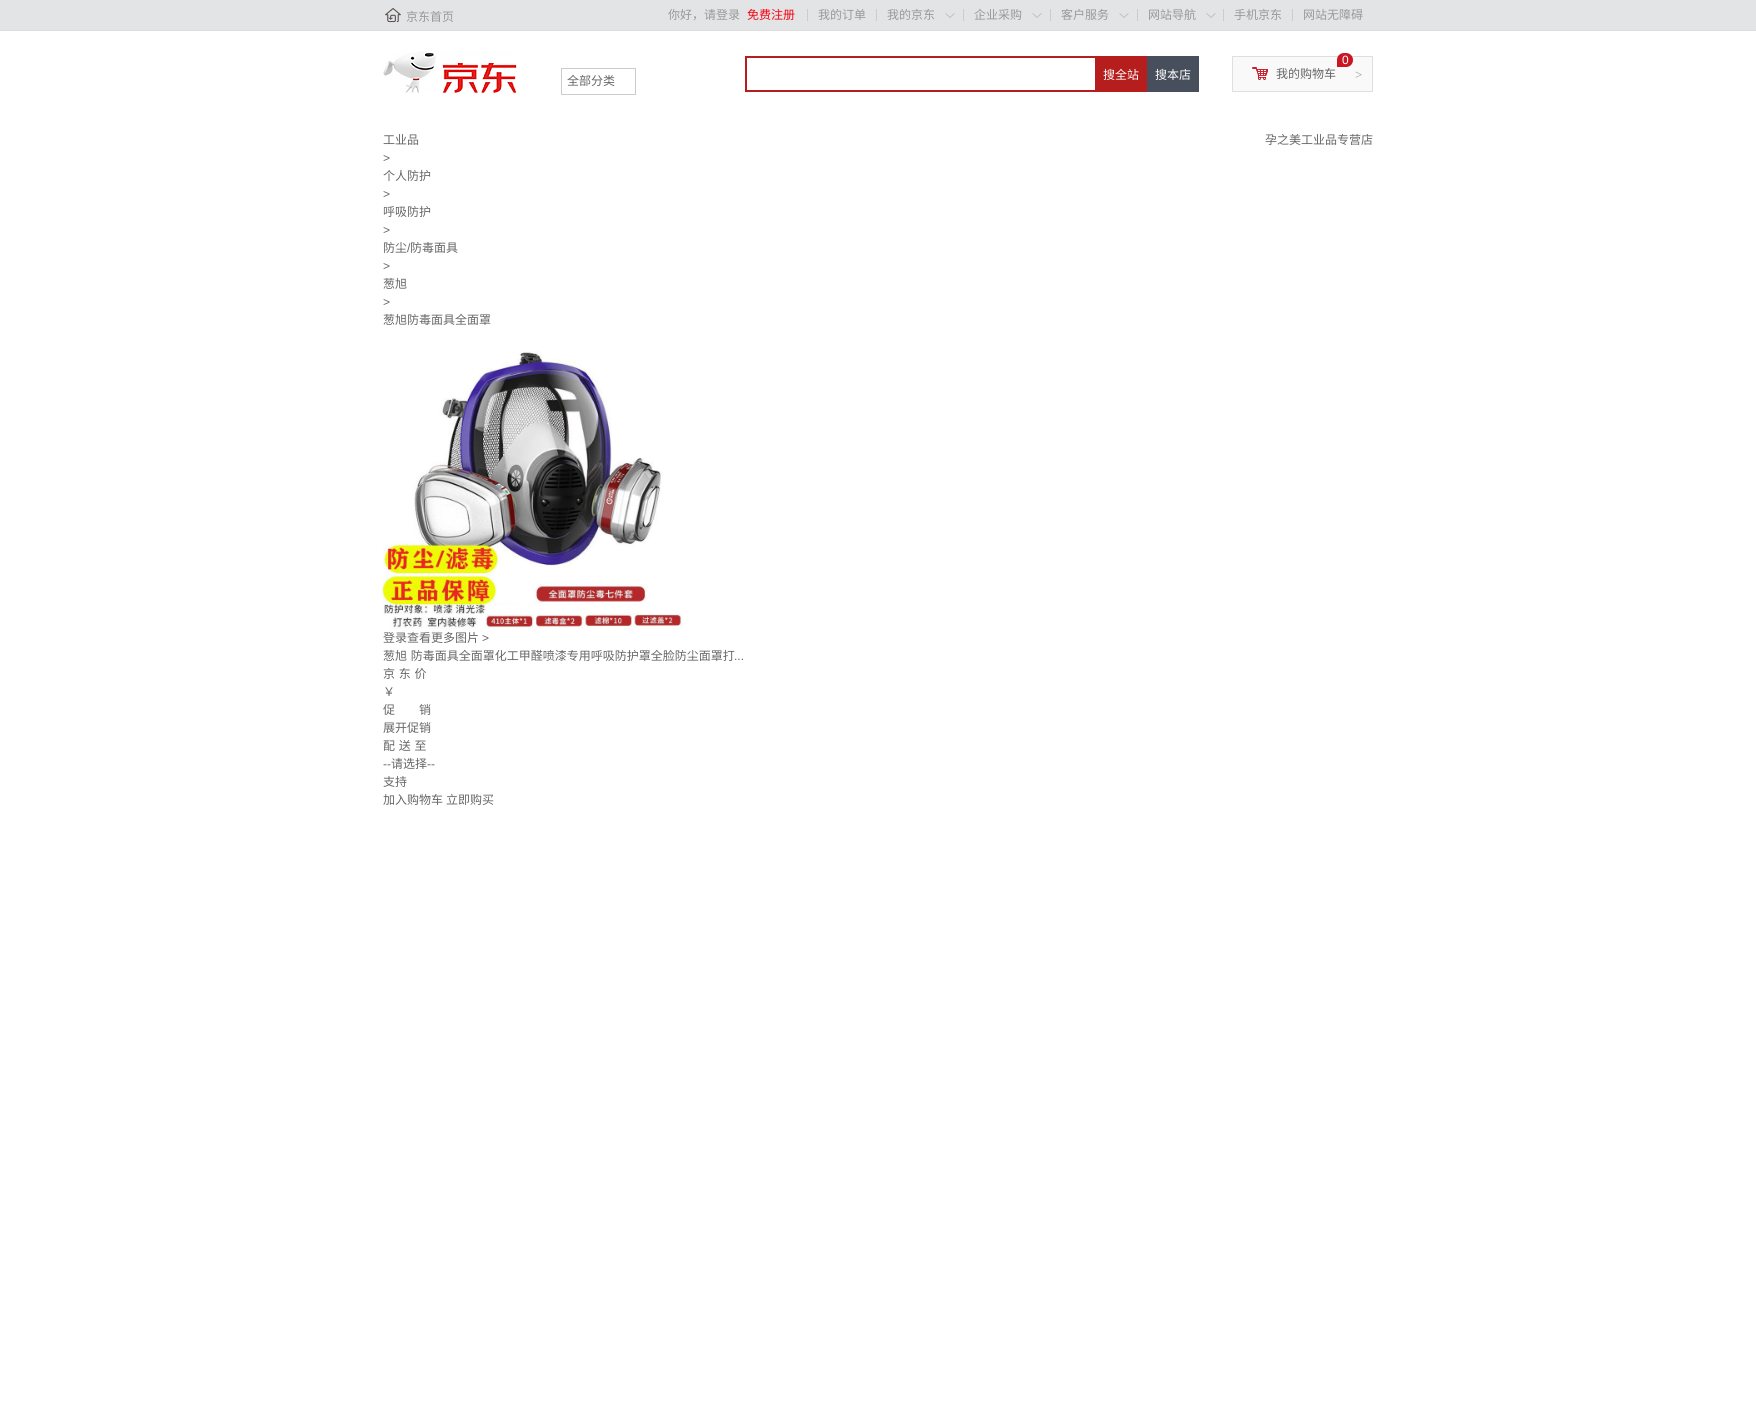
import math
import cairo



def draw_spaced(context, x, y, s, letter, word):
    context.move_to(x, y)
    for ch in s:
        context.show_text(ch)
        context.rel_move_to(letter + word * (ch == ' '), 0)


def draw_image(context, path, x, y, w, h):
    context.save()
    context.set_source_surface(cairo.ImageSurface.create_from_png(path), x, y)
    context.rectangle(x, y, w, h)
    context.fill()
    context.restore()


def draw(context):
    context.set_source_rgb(1, 1, 1)
    context.paint()
    context.set_source_rgb(227 / 255, 228 / 255, 229 / 255)
    context.rectangle(0, 0, 1756, 30)
    context.fill()
    context.set_source_rgb(221 / 255, 221 / 255, 221 / 255)
    context.rectangle(0, 30, 1756, 1)
    context.fill()
    draw_image(context, "images/1.png", 385, 8, 16, 15)
    context.set_source_rgb(204 / 255, 204 / 255, 204 / 255)
    context.rectangle(807, 9, 1, 12)
    context.fill()
    context.rectangle(876, 9, 1, 12)
    context.fill()
    draw_image(context, "images/2.png", 945, 13, 10, 5)
    context.rectangle(963, 9, 1, 12)
    context.fill()
    draw_image(context, "images/2.png", 1032, 13, 10, 5)
    context.rectangle(1050, 9, 1, 12)
    context.fill()
    draw_image(context, "images/2.png", 1119, 13, 10, 5)
    context.rectangle(1137, 9, 1, 12)
    context.fill()
    draw_image(context, "images/2.png", 1206, 13, 10, 5)
    context.rectangle(1223, 9, 1, 12)
    context.fill()
    context.rectangle(1292, 9, 1, 12)
    context.fill()
    draw_image(context, "images/3.png", 383, 51, 134, 42)
    context.rectangle(561.5, 68.5, 74, 26)
    context.set_line_width(1)
    context.stroke()
    context.set_source_rgb(182 / 255, 29 / 255, 29 / 255)
    context.rectangle(745, 56, 350, 2)
    context.fill()
    context.rectangle(745, 90, 350, 2)
    context.fill()
    context.rectangle(745, 56, 2, 36)
    context.fill()
    context.rectangle(1095, 56, 52, 36)
    context.fill()
    context.set_source_rgb(71 / 255, 78 / 255, 92 / 255)
    context.rectangle(1147, 56, 52, 36)
    context.fill()
    context.set_source_rgb(249 / 255, 249 / 255, 249 / 255)
    context.rectangle(1232.5, 56.5, 140, 35)
    context.fill_preserve()
    context.set_source_rgb(223 / 255, 223 / 255, 223 / 255)
    context.stroke()
    context.set_source_rgb(200 / 255, 22 / 255, 35 / 255)
    context.new_path()
    context.move_to(1344, 53)
    context.line_to(1346, 53)
    context.curve_to(1350, 53, 1353, 56, 1353, 60)
    context.curve_to(1353, 64, 1350, 67, 1346, 67)
    context.line_to(1337, 67)
    context.line_to(1337, 60)
    context.curve_to(1337, 56, 1340, 53, 1344, 53)
    context.close_path()
    context.fill()
    draw_image(context, "images/4.png", 1252, 67, 16, 13)
    draw_image(context, "images/5.png", 383, 351, 300, 278)
    context.select_font_face("Noto Sans CJK SC")
    context.set_font_size(12)
    context.set_source_rgb(153 / 255, 153 / 255, 153 / 255)
    context.move_to(406, 21)
    context.show_text("京东首页")
    context.move_to(668, 19)
    context.show_text("你好，请登录")
    context.set_source_rgb(243 / 255, 2 / 255, 19 / 255)
    context.move_to(747, 19)
    context.show_text("免费注册")
    context.set_source_rgb(153 / 255, 153 / 255, 153 / 255)
    context.move_to(818, 19)
    context.show_text("我的订单")
    context.move_to(887, 19)
    context.show_text("我的京东")
    context.move_to(974, 19)
    context.show_text("企业采购")
    context.move_to(1061, 19)
    context.show_text("客户服务")
    context.move_to(1148, 19)
    context.show_text("网站导航")
    context.move_to(1234, 19)
    context.show_text("手机京东")
    context.move_to(1303, 19)
    context.show_text("网站无障碍")
    context.set_source_rgb(102 / 255, 102 / 255, 102 / 255)
    context.move_to(567, 85)
    context.show_text("全部分类")
    context.set_source_rgb(1, 1, 1)
    context.move_to(1103, 79)
    context.show_text("搜全站")
    context.move_to(1155, 79)
    context.show_text("搜本店")
    context.select_font_face("Liberation Sans")
    context.move_to(1342, 64)
    context.show_text("0")
    context.select_font_face("Noto Sans CJK SC")
    context.set_source_rgb(102 / 255, 102 / 255, 102 / 255)
    context.move_to(1276, 78)
    context.show_text("我的购物车")
    context.select_font_face("Liberation Serif")
    context.set_font_size(13)
    context.set_source_rgb(153 / 255, 153 / 255, 153 / 255)
    context.move_to(1355, 79)
    context.show_text(">")
    context.select_font_face("Noto Sans CJK SC")
    context.set_font_size(12)
    context.set_source_rgb(102 / 255, 102 / 255, 102 / 255)
    context.move_to(383, 144)
    context.show_text("工业品")
    context.select_font_face("Liberation Sans")
    context.move_to(383, 162)
    context.show_text(">")
    context.select_font_face("Noto Sans CJK SC")
    context.move_to(383, 180)
    context.show_text("个人防护")
    context.select_font_face("Liberation Sans")
    context.move_to(383, 198)
    context.show_text(">")
    context.select_font_face("Noto Sans CJK SC")
    context.move_to(383, 216)
    context.show_text("呼吸防护")
    context.select_font_face("Liberation Sans")
    context.move_to(383, 234)
    context.show_text(">")
    context.select_font_face("Noto Sans CJK SC")
    context.move_to(383, 252)
    context.show_text("防尘")
    context.select_font_face("Liberation Sans")
    context.move_to(407, 252)
    context.show_text("/")
    context.select_font_face("Noto Sans CJK SC")
    context.move_to(410, 252)
    context.show_text("防毒面具")
    context.select_font_face("Liberation Sans")
    context.move_to(383, 270)
    context.show_text(">")
    context.select_font_face("Noto Sans CJK SC")
    context.move_to(383, 288)
    context.show_text("葱旭")
    context.select_font_face("Liberation Sans")
    context.move_to(383, 306)
    context.show_text(">")
    context.select_font_face("Noto Sans CJK SC")
    context.move_to(383, 324)
    context.show_text("葱旭防毒面具全面罩")
    context.move_to(1265, 144)
    context.show_text("孕之美工业品专营店")
    context.move_to(383, 642)
    context.show_text("登录查看更多图片")
    context.select_font_face("Liberation Sans")
    context.move_to(482, 642)
    context.show_text(">")
    context.select_font_face("Noto Sans CJK SC")
    draw_spaced(context, 383, 660, "葱旭 防毒面具全面罩化工甲醛喷漆专用呼吸防护罩全脸防尘面罩打", 0, 1)
    context.select_font_face("Liberation Sans")
    context.move_to(734, 660)
    context.show_text("...")
    context.select_font_face("Noto Sans CJK SC")
    draw_spaced(context, 383, 678, "京 东 价", 0, 1)
    context.move_to(383, 696)
    context.show_text("￥")
    context.move_to(383, 714)
    context.show_text("促　　销")
    context.move_to(383, 732)
    context.show_text("展开促销")
    draw_spaced(context, 383, 750, "配 送 至", 0, 1)
    context.select_font_face("Liberation Sans")
    context.move_to(383, 768)
    context.show_text("--")
    context.select_font_face("Noto Sans CJK SC")
    context.move_to(391, 768)
    context.show_text("请选择")
    context.select_font_face("Liberation Sans")
    context.move_to(427, 768)
    context.show_text("--")
    context.select_font_face("Noto Sans CJK SC")
    context.move_to(383, 786)
    context.show_text("支持")
    context.move_to(383, 804)
    context.show_text("加入购物车")
    context.move_to(446, 804)
    context.show_text("立即购买")


surface = cairo.ImageSurface(cairo.Format.RGB24, 1756, 1420)
context = cairo.Context(surface)
options = cairo.FontOptions()
options.set_hint_metrics(cairo.HintMetrics.OFF)
options.set_hint_style(cairo.HintStyle.NONE)
context.set_font_options(options)
context.set_miter_limit(4)
draw(context)
surface.write_to_png("out.png")
